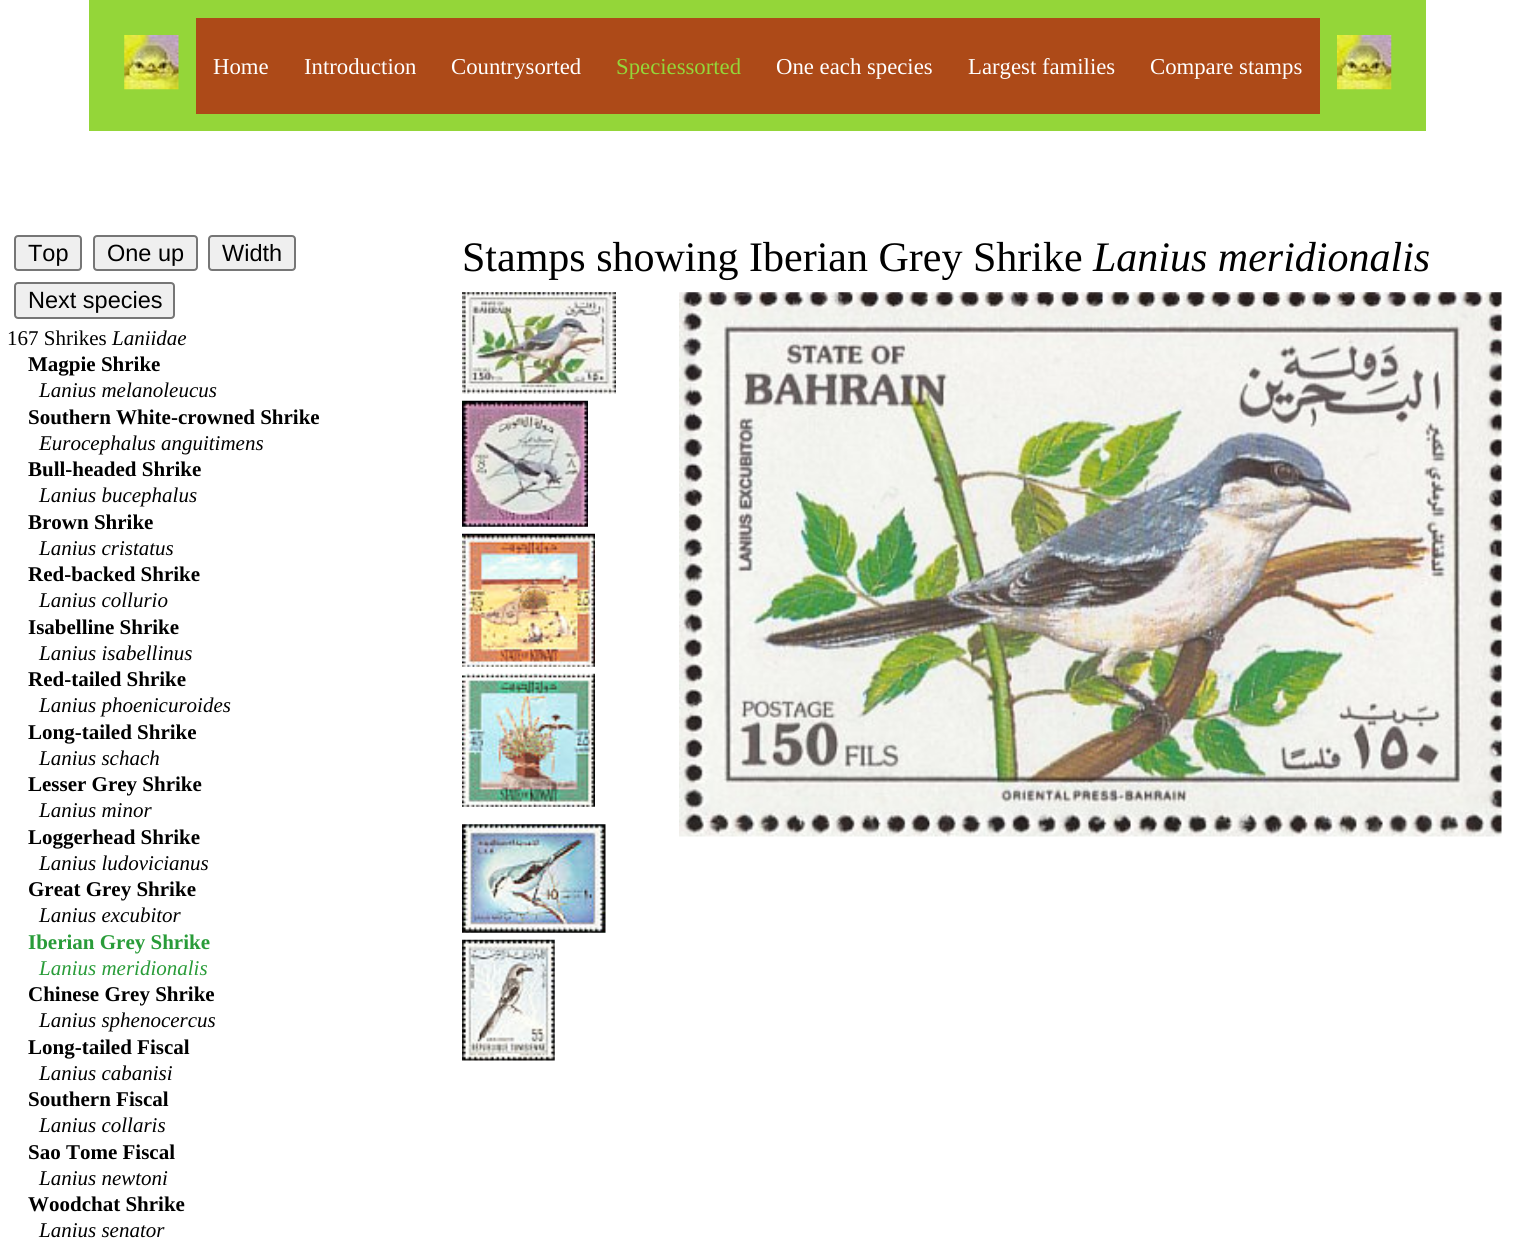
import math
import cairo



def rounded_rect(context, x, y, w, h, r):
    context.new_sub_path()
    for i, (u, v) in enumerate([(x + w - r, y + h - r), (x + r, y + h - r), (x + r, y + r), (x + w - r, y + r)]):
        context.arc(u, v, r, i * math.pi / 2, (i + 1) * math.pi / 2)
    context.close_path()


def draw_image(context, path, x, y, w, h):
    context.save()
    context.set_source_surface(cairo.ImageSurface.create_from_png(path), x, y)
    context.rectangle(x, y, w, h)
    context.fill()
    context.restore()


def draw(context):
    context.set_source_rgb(1, 1, 1)
    context.paint()
    context.set_source_rgb(148 / 255, 214 / 255, 57 / 255)
    context.rectangle(89, 0, 1337, 131)
    context.fill()
    draw_image(context, "images/1.png", 124, 35, 55, 55)
    context.set_source_rgb(173 / 255, 74 / 255, 24 / 255)
    context.rectangle(196, 18, 1124, 96)
    context.fill()
    draw_image(context, "images/2.png", 1337, 35, 55, 55)
    context.set_source_rgb(239 / 255, 239 / 255, 239 / 255)
    rounded_rect(context, 15, 236, 66, 34, 3)
    context.fill_preserve()
    context.set_source_rgb(118 / 255, 118 / 255, 118 / 255)
    context.stroke()
    context.set_source_rgb(239 / 255, 239 / 255, 239 / 255)
    rounded_rect(context, 94, 236, 103, 34, 3)
    context.fill_preserve()
    context.set_source_rgb(118 / 255, 118 / 255, 118 / 255)
    context.stroke()
    context.set_source_rgb(239 / 255, 239 / 255, 239 / 255)
    rounded_rect(context, 209, 236, 86, 34, 3)
    context.fill_preserve()
    context.set_source_rgb(118 / 255, 118 / 255, 118 / 255)
    context.stroke()
    context.set_source_rgb(239 / 255, 239 / 255, 239 / 255)
    rounded_rect(context, 15, 283, 159, 35, 3)
    context.fill_preserve()
    context.set_source_rgb(118 / 255, 118 / 255, 118 / 255)
    context.stroke()
    draw_image(context, "images/3.png", 462, 292, 154, 102)
    draw_image(context, "images/4.png", 462, 400, 126, 127)
    draw_image(context, "images/5.png", 462, 533, 133, 134)
    draw_image(context, "images/6.png", 462, 673, 133, 134)
    draw_image(context, "images/7.png", 679, 292, 823, 545)
    draw_image(context, "images/8.png", 462, 824, 144, 109)
    draw_image(context, "images/9.png", 462, 939, 93, 122)
    context.select_font_face("Liberation Serif")
    context.set_font_size(22.75)
    context.set_source_rgb(1, 1, 1)
    context.move_to(213, 74)
    context.show_text("Home")
    context.move_to(304, 74)
    context.show_text("Introduction")
    context.move_to(451, 74)
    context.show_text("Countrysorted")
    context.set_source_rgb(148 / 255, 214 / 255, 57 / 255)
    context.move_to(616, 74)
    context.show_text("Speciessorted")
    context.set_source_rgb(1, 1, 1)
    context.move_to(776, 74)
    context.show_text("One each species")
    context.move_to(968, 74)
    context.show_text("Largest families")
    context.move_to(1150, 74)
    context.show_text("Compare stamps")
    context.select_font_face("Liberation Sans")
    context.set_font_size(23.5)
    context.set_source_rgb(0, 0, 0)
    context.move_to(28, 261)
    context.show_text("Top")
    context.move_to(107, 261)
    context.show_text("One up")
    context.move_to(222, 261)
    context.show_text("Width")
    context.move_to(28, 308)
    context.show_text("Next species")
    context.select_font_face("Liberation Serif")
    context.set_font_size(21)
    context.move_to(7, 345)
    context.show_text("167 Shrikes")
    context.select_font_face("Liberation Serif", cairo.FontSlant.ITALIC)
    context.move_to(112, 345)
    context.show_text("Laniidae")
    context.select_font_face("Liberation Serif", cairo.FontSlant.NORMAL, cairo.FontWeight.BOLD)
    context.move_to(28, 371)
    context.show_text("Magpie Shrike")
    context.select_font_face("Liberation Serif", cairo.FontSlant.ITALIC)
    context.move_to(39, 397)
    context.show_text("Lanius melanoleucus")
    context.select_font_face("Liberation Serif", cairo.FontSlant.NORMAL, cairo.FontWeight.BOLD)
    context.move_to(28, 424)
    context.show_text("Southern White-crowned Shrike")
    context.select_font_face("Liberation Serif", cairo.FontSlant.ITALIC)
    context.move_to(39, 450)
    context.show_text("Eurocephalus anguitimens")
    context.select_font_face("Liberation Serif", cairo.FontSlant.NORMAL, cairo.FontWeight.BOLD)
    context.move_to(28, 476)
    context.show_text("Bull-headed Shrike")
    context.select_font_face("Liberation Serif", cairo.FontSlant.ITALIC)
    context.move_to(39, 502)
    context.show_text("Lanius bucephalus")
    context.select_font_face("Liberation Serif", cairo.FontSlant.NORMAL, cairo.FontWeight.BOLD)
    context.move_to(28, 529)
    context.show_text("Brown Shrike")
    context.select_font_face("Liberation Serif", cairo.FontSlant.ITALIC)
    context.move_to(39, 555)
    context.show_text("Lanius cristatus")
    context.select_font_face("Liberation Serif", cairo.FontSlant.NORMAL, cairo.FontWeight.BOLD)
    context.move_to(28, 581)
    context.show_text("Red-backed Shrike")
    context.select_font_face("Liberation Serif", cairo.FontSlant.ITALIC)
    context.move_to(39, 607)
    context.show_text("Lanius collurio")
    context.select_font_face("Liberation Serif", cairo.FontSlant.NORMAL, cairo.FontWeight.BOLD)
    context.move_to(28, 634)
    context.show_text("Isabelline Shrike")
    context.select_font_face("Liberation Serif", cairo.FontSlant.ITALIC)
    context.move_to(39, 660)
    context.show_text("Lanius isabellinus")
    context.select_font_face("Liberation Serif", cairo.FontSlant.NORMAL, cairo.FontWeight.BOLD)
    context.move_to(28, 686)
    context.show_text("Red-tailed Shrike")
    context.select_font_face("Liberation Serif", cairo.FontSlant.ITALIC)
    context.move_to(39, 712)
    context.show_text("Lanius phoenicuroides")
    context.select_font_face("Liberation Serif", cairo.FontSlant.NORMAL, cairo.FontWeight.BOLD)
    context.move_to(28, 739)
    context.show_text("Long-tailed Shrike")
    context.select_font_face("Liberation Serif", cairo.FontSlant.ITALIC)
    context.move_to(39, 765)
    context.show_text("Lanius schach")
    context.select_font_face("Liberation Serif", cairo.FontSlant.NORMAL, cairo.FontWeight.BOLD)
    context.move_to(28, 791)
    context.show_text("Lesser Grey Shrike")
    context.select_font_face("Liberation Serif", cairo.FontSlant.ITALIC)
    context.move_to(39, 817)
    context.show_text("Lanius minor")
    context.select_font_face("Liberation Serif", cairo.FontSlant.NORMAL, cairo.FontWeight.BOLD)
    context.move_to(28, 844)
    context.show_text("Loggerhead Shrike")
    context.select_font_face("Liberation Serif", cairo.FontSlant.ITALIC)
    context.move_to(39, 870)
    context.show_text("Lanius ludovicianus")
    context.select_font_face("Liberation Serif", cairo.FontSlant.NORMAL, cairo.FontWeight.BOLD)
    context.move_to(28, 896)
    context.show_text("Great Grey Shrike")
    context.select_font_face("Liberation Serif", cairo.FontSlant.ITALIC)
    context.move_to(39, 922)
    context.show_text("Lanius excubitor")
    context.select_font_face("Liberation Serif", cairo.FontSlant.NORMAL, cairo.FontWeight.BOLD)
    context.set_source_rgb(41 / 255, 156 / 255, 57 / 255)
    context.move_to(28, 949)
    context.show_text("Iberian Grey Shrike")
    context.select_font_face("Liberation Serif", cairo.FontSlant.ITALIC)
    context.move_to(39, 975)
    context.show_text("Lanius meridionalis")
    context.select_font_face("Liberation Serif", cairo.FontSlant.NORMAL, cairo.FontWeight.BOLD)
    context.set_source_rgb(0, 0, 0)
    context.move_to(28, 1001)
    context.show_text("Chinese Grey Shrike")
    context.select_font_face("Liberation Serif", cairo.FontSlant.ITALIC)
    context.move_to(39, 1027)
    context.show_text("Lanius sphenocercus")
    context.select_font_face("Liberation Serif", cairo.FontSlant.NORMAL, cairo.FontWeight.BOLD)
    context.move_to(28, 1054)
    context.show_text("Long-tailed Fiscal")
    context.select_font_face("Liberation Serif", cairo.FontSlant.ITALIC)
    context.move_to(39, 1080)
    context.show_text("Lanius cabanisi")
    context.select_font_face("Liberation Serif", cairo.FontSlant.NORMAL, cairo.FontWeight.BOLD)
    context.move_to(28, 1106)
    context.show_text("Southern Fiscal")
    context.select_font_face("Liberation Serif", cairo.FontSlant.ITALIC)
    context.move_to(39, 1132)
    context.show_text("Lanius collaris")
    context.select_font_face("Liberation Serif", cairo.FontSlant.NORMAL, cairo.FontWeight.BOLD)
    context.move_to(28, 1159)
    context.show_text("Sao Tome Fiscal")
    context.select_font_face("Liberation Serif", cairo.FontSlant.ITALIC)
    context.move_to(39, 1185)
    context.show_text("Lanius newtoni")
    context.select_font_face("Liberation Serif", cairo.FontSlant.NORMAL, cairo.FontWeight.BOLD)
    context.move_to(28, 1211)
    context.show_text("Woodchat Shrike")
    context.select_font_face("Liberation Serif", cairo.FontSlant.ITALIC)
    context.move_to(39, 1237)
    context.show_text("Lanius senator")
    context.select_font_face("Liberation Serif")
    context.set_font_size(42)
    context.move_to(462, 271)
    context.show_text("Stamps showing Iberian Grey Shrike")
    context.select_font_face("Liberation Serif", cairo.FontSlant.ITALIC)
    context.move_to(1093, 271)
    context.show_text("Lanius meridionalis")


surface = cairo.ImageSurface(cairo.Format.RGB24, 1514, 1239)
context = cairo.Context(surface)
options = cairo.FontOptions()
options.set_hint_metrics(cairo.HintMetrics.OFF)
options.set_hint_style(cairo.HintStyle.NONE)
context.set_font_options(options)
context.set_miter_limit(4)
draw(context)
surface.write_to_png("out.png")
